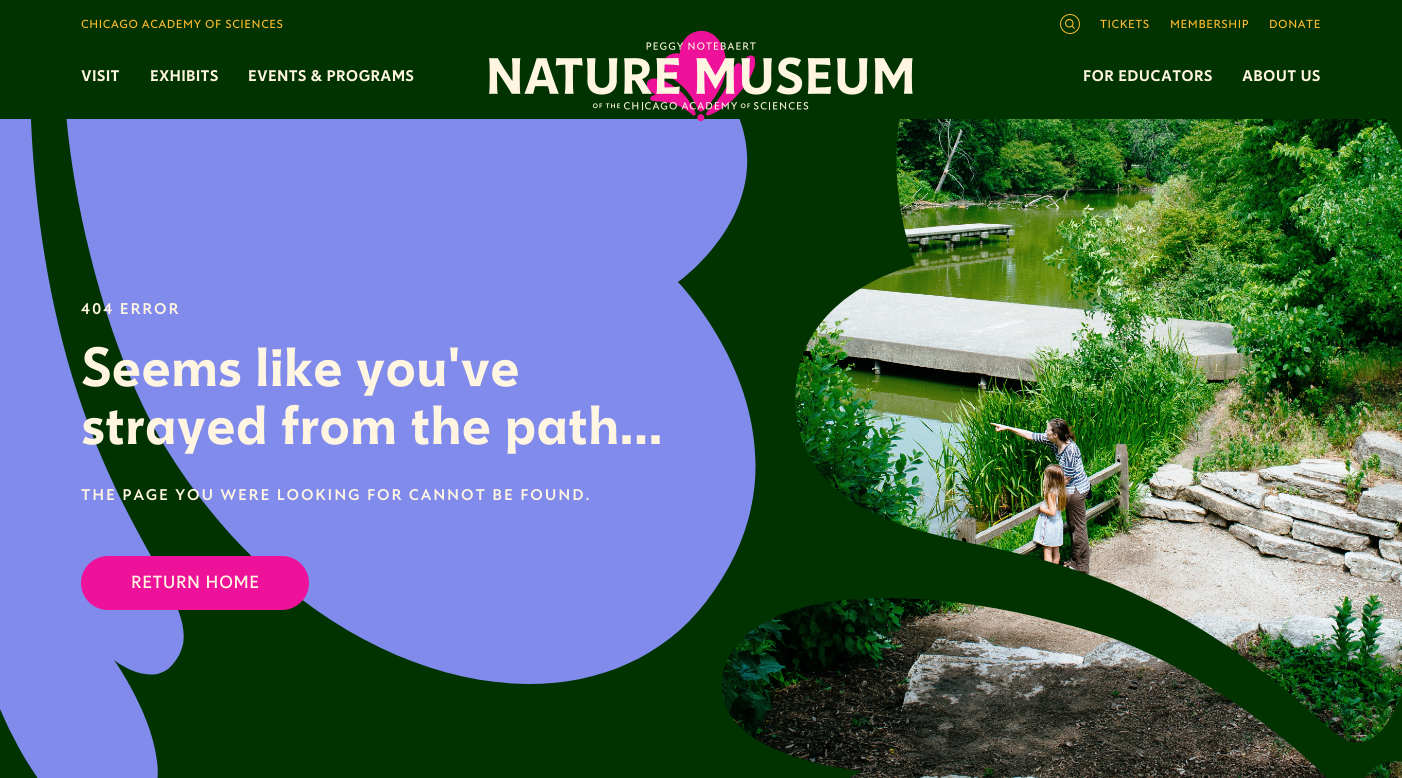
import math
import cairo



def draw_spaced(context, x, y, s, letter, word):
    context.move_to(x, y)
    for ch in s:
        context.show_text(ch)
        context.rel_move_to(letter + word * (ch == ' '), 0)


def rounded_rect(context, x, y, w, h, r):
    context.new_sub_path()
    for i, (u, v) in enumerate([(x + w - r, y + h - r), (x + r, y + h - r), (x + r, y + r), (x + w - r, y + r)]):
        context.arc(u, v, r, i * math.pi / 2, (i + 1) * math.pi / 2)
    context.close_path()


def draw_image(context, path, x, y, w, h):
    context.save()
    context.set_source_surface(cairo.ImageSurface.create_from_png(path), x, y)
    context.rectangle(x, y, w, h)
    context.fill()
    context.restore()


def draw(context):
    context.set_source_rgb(1, 1, 1)
    context.paint()
    context.set_source_rgb(0, 51 / 255, 0)
    context.rectangle(0, 0, 1402, 119)
    context.fill()
    context.arc(1070, 24, 9.5, 0, 2 * math.pi)
    context.set_source_rgb(1, 185 / 255, 42 / 255)
    context.set_line_width(1)
    context.stroke()
    draw_image(context, "images/1.png", 1065, 19, 10, 10)
    draw_image(context, "images/5.png", 721, 119, 681, 659)
    draw_image(context, "images/4.png", 0, 119, 1402, 659)
    draw_image(context, "images/2.png", 647, 30, 108, 92)
    draw_image(context, "images/3.png", 489, 42, 424, 68)
    context.set_source_rgb(238 / 255, 17 / 255, 153 / 255)
    rounded_rect(context, 81, 556, 228, 54, 27)
    context.fill()
    context.select_font_face("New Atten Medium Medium")
    context.set_font_size(12)
    context.set_source_rgb(1, 185 / 255, 42 / 255)
    draw_spaced(context, 81, 28, "CHICAGO ACADEMY OF SCIENCES", 0.6, 0)
    draw_spaced(context, 1100, 28, "TICKETS", 0.6, 0)
    draw_spaced(context, 1170, 28, "MEMBERSHIP", 0.6, 0)
    draw_spaced(context, 1269, 28, "DONATE", 0.6, 0)
    context.select_font_face("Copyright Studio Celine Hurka")
    context.set_font_size(14)
    context.set_source_rgb(1, 245 / 255, 225 / 255)
    draw_spaced(context, 81, 81, "VISIT", 0.25, 0)
    draw_spaced(context, 150, 81, "EXHIBITS", 0.25, 0)
    draw_spaced(context, 248, 81, "EVENTS & PROGRAMS", 0.25, 0)
    draw_spaced(context, 1083, 81, "FOR EDUCATORS", 0.25, 0)
    draw_spaced(context, 1242, 81, "ABOUT US", 0.25, 0)
    context.select_font_face("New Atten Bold", cairo.FontSlant.NORMAL, cairo.FontWeight.BOLD)
    context.set_font_size(16)
    draw_spaced(context, 81, 314, "404 ERROR", 1.9, 0)
    context.select_font_face("Copyright Studio Celine Hurka")
    context.set_font_size(50)
    draw_spaced(context, 81, 386, "Seems like you've", -0.6, 0)
    draw_spaced(context, 81, 444, "strayed from the path...", -0.6, 0)
    context.select_font_face("New Atten Bold", cairo.FontSlant.NORMAL, cairo.FontWeight.BOLD)
    context.set_font_size(16)
    draw_spaced(context, 81, 500, "THE PAGE YOU WERE LOOKING FOR CANNOT BE FOUND.", 1.9, 0)
    context.select_font_face("Copyright Studio Celine Hurka Medium")
    draw_spaced(context, 131, 588, "RETURN HOME", 0.5, 0)


surface = cairo.ImageSurface(cairo.Format.RGB24, 1402, 778)
context = cairo.Context(surface)
options = cairo.FontOptions()
options.set_hint_metrics(cairo.HintMetrics.OFF)
options.set_hint_style(cairo.HintStyle.NONE)
context.set_font_options(options)
context.set_miter_limit(4)
draw(context)
surface.write_to_png("out.png")
